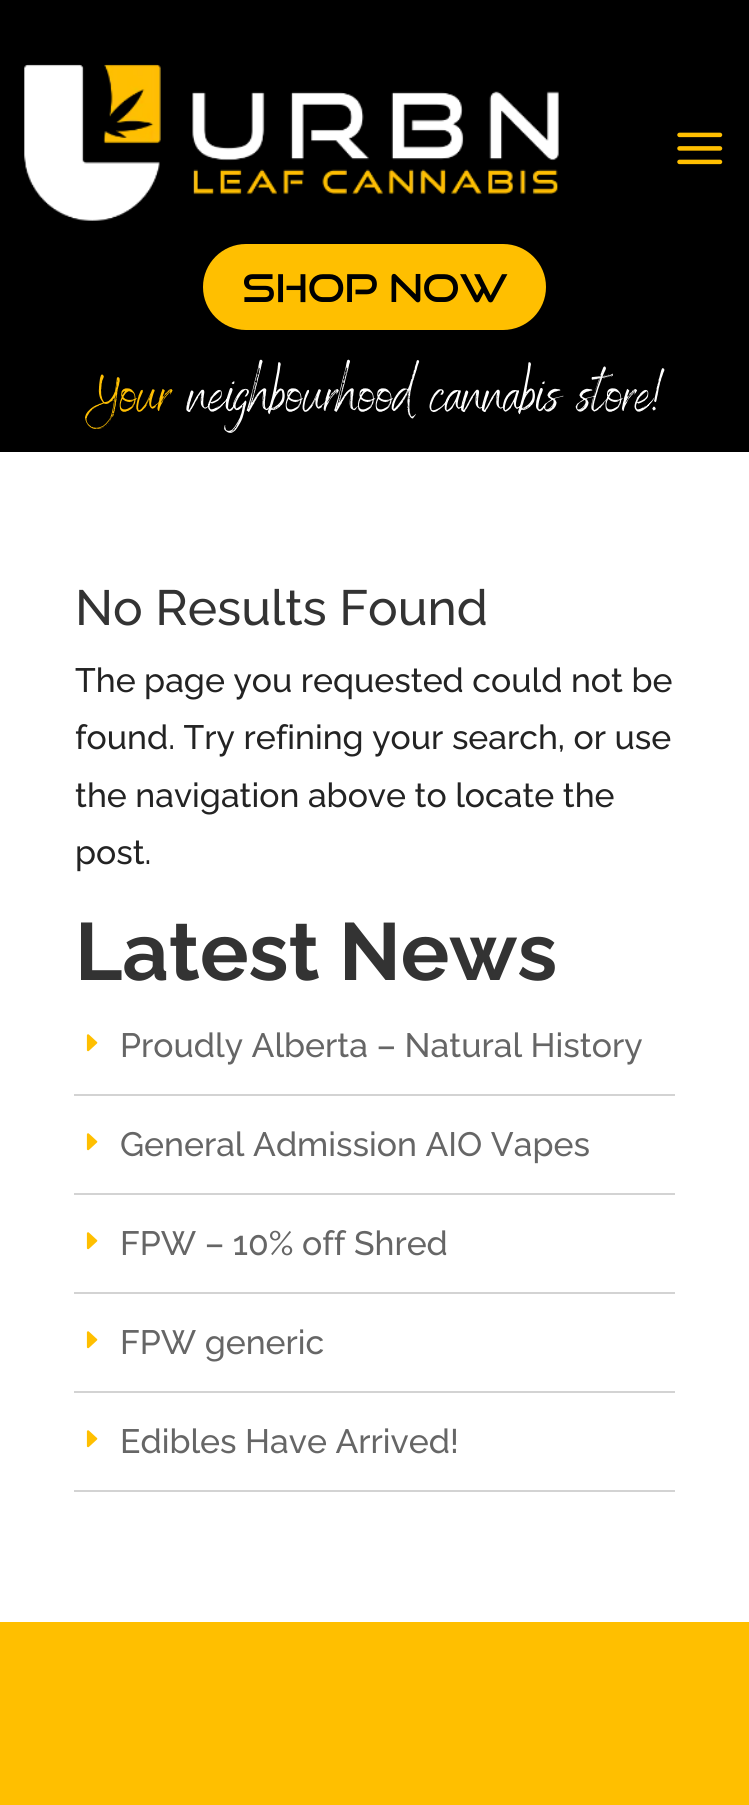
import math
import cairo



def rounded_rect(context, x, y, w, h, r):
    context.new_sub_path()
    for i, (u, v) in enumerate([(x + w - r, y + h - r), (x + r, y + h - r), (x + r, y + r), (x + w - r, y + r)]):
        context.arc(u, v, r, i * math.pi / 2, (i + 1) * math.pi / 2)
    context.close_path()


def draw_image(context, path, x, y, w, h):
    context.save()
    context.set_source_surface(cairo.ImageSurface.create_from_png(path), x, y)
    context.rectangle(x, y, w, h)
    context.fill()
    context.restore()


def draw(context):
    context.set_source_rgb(0, 0, 0)
    context.paint()
    draw_image(context, "images/1.png", 24, 64, 535, 157)
    draw_image(context, "images/2.png", 677, 132, 46, 33)
    context.set_source_rgb(1, 191 / 255, 0)
    rounded_rect(context, 200.5, 241.5, 348, 91, 45.5)
    context.fill_preserve()
    context.set_source_rgb(0, 0, 0)
    context.set_line_width(5)
    context.stroke()
    context.set_source_rgb(1, 1, 1)
    context.rectangle(0, 452, 749, 1170)
    context.fill()
    context.set_source_rgb(211 / 255, 211 / 255, 211 / 255)
    context.rectangle(74, 1094, 601, 2)
    context.fill()
    draw_image(context, "images/3.png", 86, 1034, 12, 18)
    context.rectangle(74, 1193, 601, 2)
    context.fill()
    draw_image(context, "images/3.png", 86, 1133, 12, 18)
    context.rectangle(74, 1292, 601, 2)
    context.fill()
    draw_image(context, "images/3.png", 86, 1232, 12, 18)
    context.rectangle(74, 1391, 601, 2)
    context.fill()
    draw_image(context, "images/3.png", 86, 1331, 12, 18)
    context.rectangle(74, 1490, 601, 2)
    context.fill()
    draw_image(context, "images/3.png", 86, 1430, 12, 18)
    context.set_source_rgb(1, 191 / 255, 0)
    context.rectangle(0, 1622, 749, 183)
    context.fill()
    context.select_font_face("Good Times")
    context.set_font_size(38.25)
    context.set_source_rgb(0, 0, 0)
    context.move_to(242, 302)
    context.show_text("Shop Now")
    context.select_font_face("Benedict")
    context.set_font_size(58.5)
    context.set_source_rgb(1, 191 / 255, 2 / 255)
    context.move_to(85, 410)
    context.show_text("Your")
    context.set_source_rgb(1, 1, 1)
    context.move_to(188, 410)
    context.show_text("neighbourhood cannabis store!")
    context.select_font_face("Raleway Thin")
    context.set_font_size(49.5)
    context.set_source_rgb(51 / 255, 51 / 255, 51 / 255)
    context.move_to(75, 625)
    context.show_text("No Results Found")
    context.set_font_size(33.75)
    context.set_source_rgb(35 / 255, 35 / 255, 35 / 255)
    context.move_to(75, 692)
    context.show_text("The page you requested could not be")
    context.move_to(75, 749)
    context.show_text("found. Try refining your search, or use")
    context.move_to(75, 807)
    context.show_text("the navigation above to locate the")
    context.move_to(75, 864)
    context.show_text("post.")
    context.select_font_face("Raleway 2 Thin")
    context.set_font_size(81)
    context.set_source_rgb(51 / 255, 51 / 255, 51 / 255)
    context.move_to(75, 980)
    context.show_text("Latest News")
    context.select_font_face("Raleway Thin")
    context.set_font_size(33.75)
    context.set_source_rgb(102 / 255, 102 / 255, 102 / 255)
    context.move_to(120, 1057)
    context.show_text("Proudly Alberta – Natural History")
    context.move_to(120, 1156)
    context.show_text("General Admission AIO Vapes")
    context.move_to(120, 1255)
    context.show_text("FPW – 10% off Shred")
    context.move_to(120, 1354)
    context.show_text("FPW generic")
    context.move_to(120, 1453)
    context.show_text("Edibles Have Arrived!")


surface = cairo.ImageSurface(cairo.Format.RGB24, 749, 1805)
context = cairo.Context(surface)
options = cairo.FontOptions()
options.set_hint_metrics(cairo.HintMetrics.OFF)
options.set_hint_style(cairo.HintStyle.NONE)
context.set_font_options(options)
context.set_miter_limit(4)
draw(context)
surface.write_to_png("out.png")
